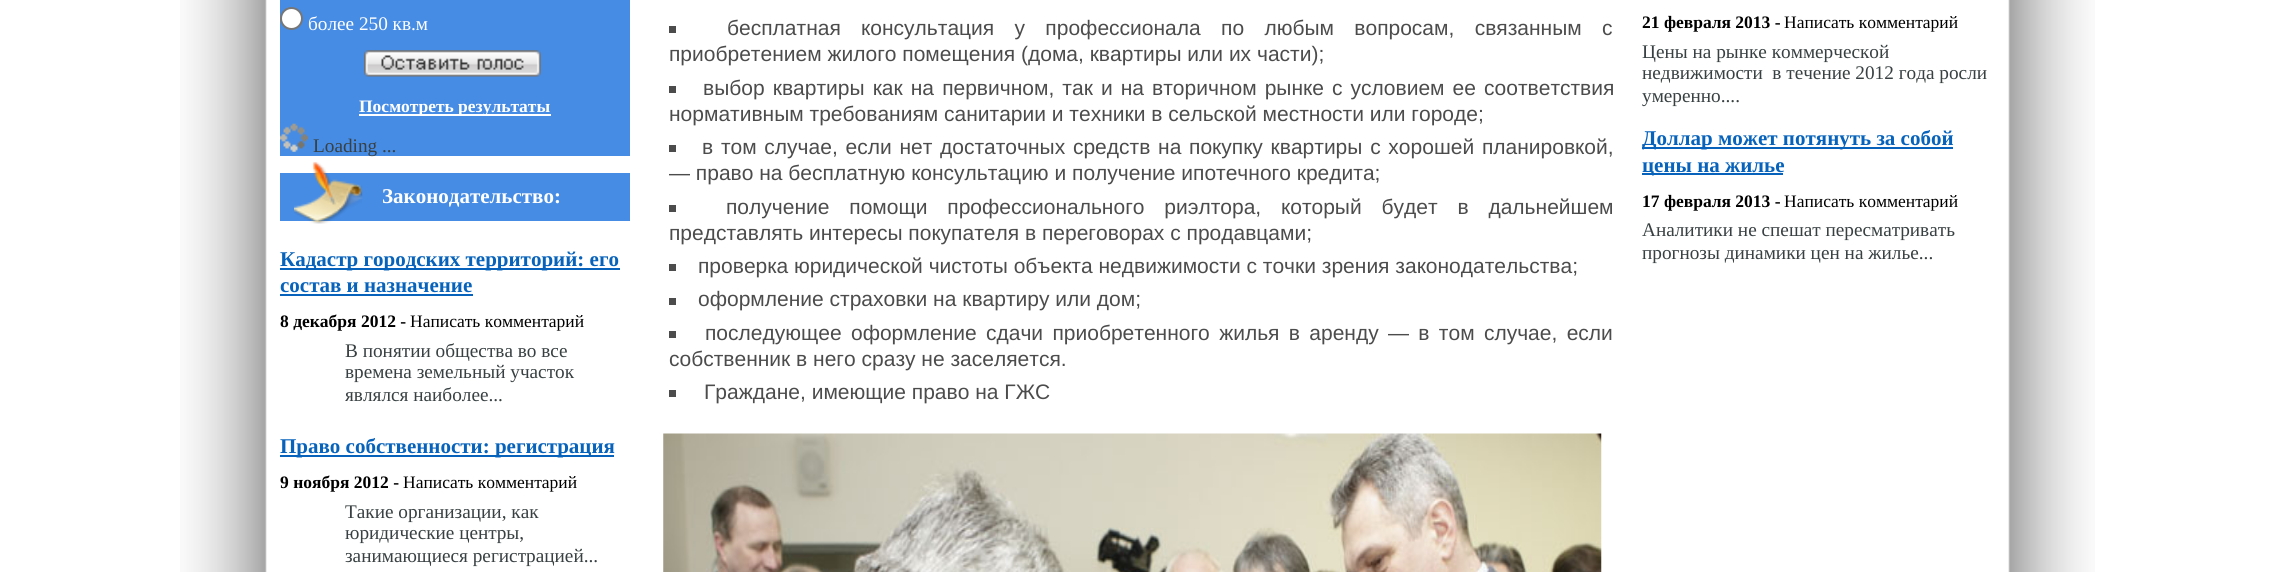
import math
import cairo



def draw_spaced(context, x, y, s, letter, word):
    context.move_to(x, y)
    for ch in s:
        context.show_text(ch)
        context.rel_move_to(letter + word * (ch == ' '), 0)


def draw_image(context, path, x, y, w, h):
    context.save()
    context.set_source_surface(cairo.ImageSurface.create_from_png(path), x, y)
    context.rectangle(x, y, w, h)
    context.fill()
    context.restore()


def draw(context):
    context.set_source_rgb(1, 1, 1)
    context.paint()
    draw_image(context, "images/1.png", 180, 0, 1915, 572)
    context.set_source_rgb(70 / 255, 140 / 255, 229 / 255)
    context.rectangle(280, 0, 350, 156)
    context.fill()
    context.set_source_rgb(1, 1, 1)
    context.arc(291.5, 18.5, 10.5, 0, 2 * math.pi)
    context.fill_preserve()
    context.set_source_rgb(118 / 255, 118 / 255, 118 / 255)
    context.stroke()
    draw_image(context, "images/2.png", 364, 50, 177, 27)
    context.set_source_rgb(1, 1, 1)
    context.rectangle(359, 114, 192, 2)
    context.fill()
    draw_image(context, "images/3.png", 280, 123, 28, 29)
    context.set_source_rgb(70 / 255, 140 / 255, 229 / 255)
    context.rectangle(280, 173, 350, 48)
    context.fill()
    draw_image(context, "images/4.png", 294, 161, 69, 63)
    context.set_source_rgb(6 / 255, 98 / 255, 186 / 255)
    context.rectangle(280, 268, 340, 2)
    context.fill()
    context.rectangle(280, 294, 193, 2)
    context.fill()
    context.rectangle(280, 455, 334, 2)
    context.fill()
    context.set_source_rgb(76 / 255, 76 / 255, 76 / 255)
    context.rectangle(669, 26, 7, 7)
    context.fill()
    context.rectangle(669, 86, 7, 7)
    context.fill()
    context.rectangle(669, 145, 7, 7)
    context.fill()
    context.rectangle(669, 205, 7, 7)
    context.fill()
    context.rectangle(669, 264, 7, 7)
    context.fill()
    context.rectangle(669, 298, 7, 7)
    context.fill()
    context.rectangle(669, 331, 7, 7)
    context.fill()
    context.rectangle(669, 390, 7, 7)
    context.fill()
    draw_image(context, "images/5.png", 663, 433, 939, 139)
    context.set_source_rgb(6 / 255, 98 / 255, 186 / 255)
    context.rectangle(1642, 147, 311, 2)
    context.fill()
    context.rectangle(1642, 173, 141, 2)
    context.fill()
    context.select_font_face("Liberation Serif")
    context.set_font_size(19.25)
    context.set_source_rgb(1, 1, 1)
    context.move_to(308, 30)
    context.show_text("более 250 кв.м")
    context.select_font_face("Liberation Serif", cairo.FontSlant.NORMAL, cairo.FontWeight.BOLD)
    context.set_font_size(17.5)
    context.move_to(359, 112)
    context.show_text("Посмотреть результаты")
    context.select_font_face("Liberation Serif")
    context.set_font_size(19.25)
    context.set_source_rgb(56 / 255, 64 / 255, 65 / 255)
    context.move_to(313, 152)
    context.show_text("Loading ...")
    context.select_font_face("Liberation Serif", cairo.FontSlant.NORMAL, cairo.FontWeight.BOLD)
    context.set_font_size(21)
    context.set_source_rgb(1, 1, 1)
    context.move_to(382, 203)
    context.show_text("Законодательство:")
    context.set_source_rgb(6 / 255, 98 / 255, 186 / 255)
    context.move_to(280, 266)
    context.show_text("Кадастр городских территорий: его")
    context.move_to(280, 292)
    context.show_text("состав и назначение")
    context.set_font_size(17.5)
    context.set_source_rgb(0, 0, 0)
    context.move_to(280, 327)
    context.show_text("8 декабря 2012 -")
    context.select_font_face("Liberation Serif")
    context.move_to(410, 327)
    context.show_text("Написать комментарий")
    context.set_font_size(19.25)
    context.set_source_rgb(56 / 255, 64 / 255, 65 / 255)
    context.move_to(345, 357)
    context.show_text("В понятии общества во все")
    context.move_to(345, 378)
    context.show_text("времена земельный участок")
    context.move_to(345, 401)
    context.show_text("являлся наиболее...")
    context.select_font_face("Liberation Serif", cairo.FontSlant.NORMAL, cairo.FontWeight.BOLD)
    context.set_font_size(21)
    context.set_source_rgb(6 / 255, 98 / 255, 186 / 255)
    context.move_to(280, 453)
    context.show_text("Право собственности: регистрация")
    context.set_font_size(17.5)
    context.set_source_rgb(0, 0, 0)
    context.move_to(280, 488)
    context.show_text("9 ноября 2012 -")
    context.select_font_face("Liberation Serif")
    context.move_to(403, 488)
    context.show_text("Написать комментарий")
    context.set_font_size(19.25)
    context.set_source_rgb(56 / 255, 64 / 255, 65 / 255)
    context.move_to(345, 518)
    context.show_text("Такие организации, как")
    context.move_to(345, 539)
    context.show_text("юридические центры,")
    context.move_to(345, 562)
    context.show_text("занимающиеся регистрацией...")
    context.select_font_face("Liberation Sans")
    context.set_font_size(21)
    context.set_source_rgb(76 / 255, 76 / 255, 76 / 255)
    draw_spaced(context, 727, 35, "бесплатная консультация у профессионала по любым вопросам, связанным с", 0, 14.5)
    context.move_to(669, 61)
    context.show_text("приобретением жилого помещения (дома, квартиры или их части);")
    draw_spaced(context, 703, 95, "выбор квартиры как на первичном, так и на вторичном рынке с условием ее соответствия", 0, 2.25)
    context.move_to(669, 121)
    context.show_text("нормативным требованиям санитарии и техники в сельской местности или городе;")
    draw_spaced(context, 702, 154, "в том случае, если нет достаточных средств на покупку квартиры с хорошей планировкой,", 0, 1.9)
    context.move_to(669, 180)
    context.show_text("— право на бесплатную консультацию и получение ипотечного кредита;")
    draw_spaced(context, 726, 214, "получение помощи профессионального риэлтора, который будет в дальнейшем", 0, 14)
    context.move_to(669, 240)
    context.show_text("представлять интересы покупателя в переговорах с продавцами;")
    context.move_to(698, 273)
    context.show_text("проверка юридической чистоты объекта недвижимости с точки зрения законодательства;")
    context.move_to(698, 306)
    context.show_text("оформление страховки на квартиру или дом;")
    draw_spaced(context, 705, 340, "последующее оформление сдачи приобретенного жилья в аренду — в том случае, если", 0, 3.5)
    context.move_to(669, 366)
    context.show_text("собственник в него сразу не заселяется.")
    context.move_to(704, 399)
    context.show_text("Граждане, имеющие право на ГЖС")
    context.select_font_face("Liberation Serif", cairo.FontSlant.NORMAL, cairo.FontWeight.BOLD)
    context.set_font_size(17.5)
    context.set_source_rgb(0, 0, 0)
    context.move_to(1642, 28)
    context.show_text("21 февраля 2013 -")
    context.select_font_face("Liberation Serif")
    context.move_to(1784, 28)
    context.show_text("Написать комментарий")
    context.set_font_size(19.25)
    context.set_source_rgb(56 / 255, 64 / 255, 65 / 255)
    context.move_to(1642, 58)
    context.show_text("Цены на рынке коммерческой")
    context.move_to(1642, 79)
    context.show_text("недвижимости  в течение 2012 года росли")
    context.move_to(1642, 102)
    context.show_text("умеренно....")
    context.select_font_face("Liberation Serif", cairo.FontSlant.NORMAL, cairo.FontWeight.BOLD)
    context.set_font_size(21)
    context.set_source_rgb(6 / 255, 98 / 255, 186 / 255)
    context.move_to(1642, 145)
    context.show_text("Доллар может потянуть за собой")
    context.move_to(1642, 172)
    context.show_text("цены на жилье")
    context.set_font_size(17.5)
    context.set_source_rgb(0, 0, 0)
    context.move_to(1642, 207)
    context.show_text("17 февраля 2013 -")
    context.select_font_face("Liberation Serif")
    context.move_to(1784, 207)
    context.show_text("Написать комментарий")
    context.set_font_size(19.25)
    context.set_source_rgb(56 / 255, 64 / 255, 65 / 255)
    context.move_to(1642, 236)
    context.show_text("Аналитики не спешат пересматривать")
    context.move_to(1642, 259)
    context.show_text("прогнозы динамики цен на жилье...")


surface = cairo.ImageSurface(cairo.Format.RGB24, 2272, 572)
context = cairo.Context(surface)
options = cairo.FontOptions()
options.set_hint_metrics(cairo.HintMetrics.OFF)
options.set_hint_style(cairo.HintStyle.NONE)
context.set_font_options(options)
context.set_miter_limit(4)
draw(context)
surface.write_to_png("out.png")
